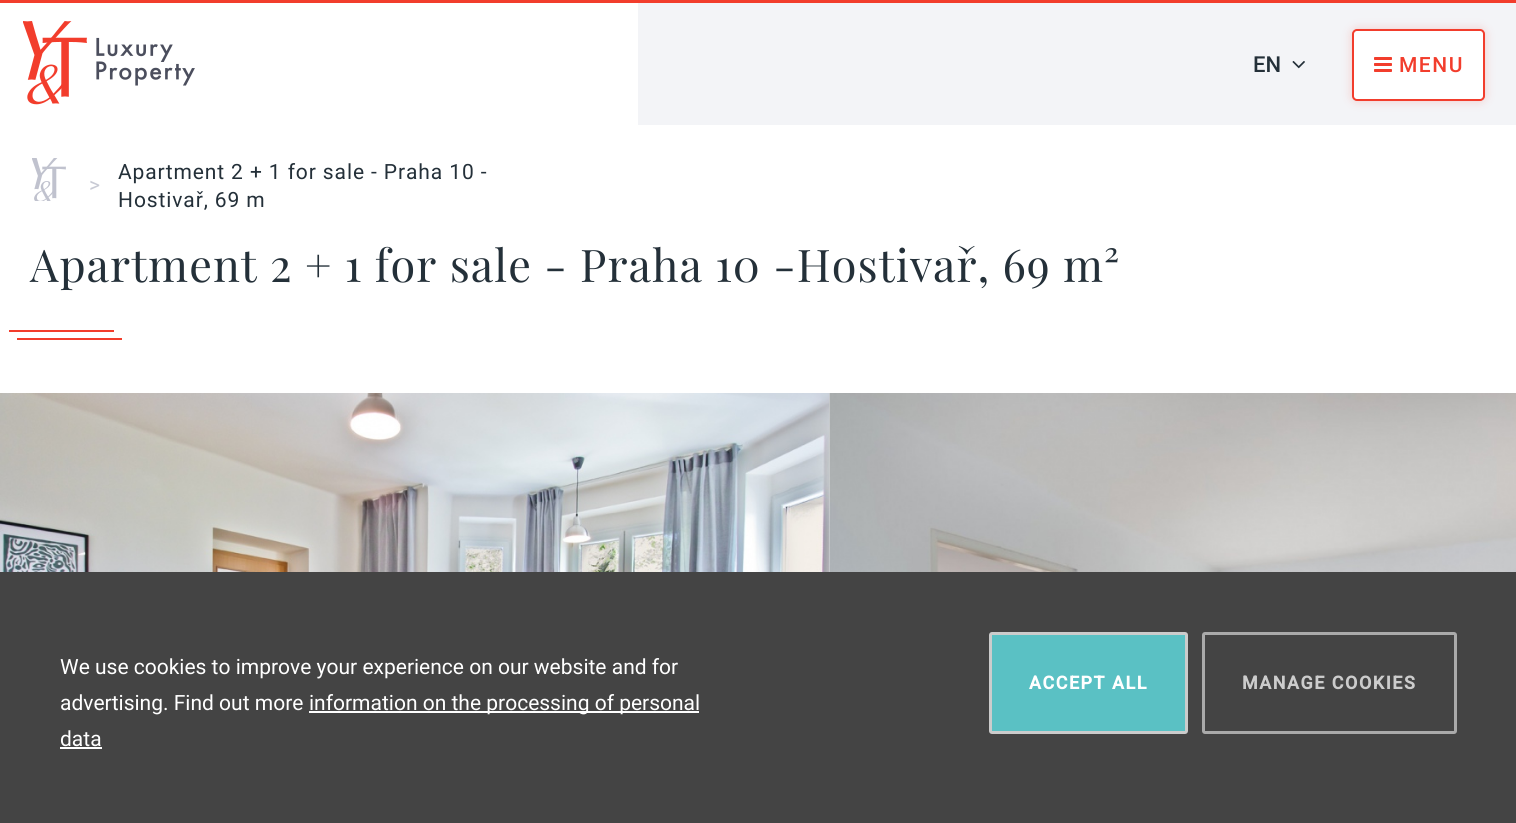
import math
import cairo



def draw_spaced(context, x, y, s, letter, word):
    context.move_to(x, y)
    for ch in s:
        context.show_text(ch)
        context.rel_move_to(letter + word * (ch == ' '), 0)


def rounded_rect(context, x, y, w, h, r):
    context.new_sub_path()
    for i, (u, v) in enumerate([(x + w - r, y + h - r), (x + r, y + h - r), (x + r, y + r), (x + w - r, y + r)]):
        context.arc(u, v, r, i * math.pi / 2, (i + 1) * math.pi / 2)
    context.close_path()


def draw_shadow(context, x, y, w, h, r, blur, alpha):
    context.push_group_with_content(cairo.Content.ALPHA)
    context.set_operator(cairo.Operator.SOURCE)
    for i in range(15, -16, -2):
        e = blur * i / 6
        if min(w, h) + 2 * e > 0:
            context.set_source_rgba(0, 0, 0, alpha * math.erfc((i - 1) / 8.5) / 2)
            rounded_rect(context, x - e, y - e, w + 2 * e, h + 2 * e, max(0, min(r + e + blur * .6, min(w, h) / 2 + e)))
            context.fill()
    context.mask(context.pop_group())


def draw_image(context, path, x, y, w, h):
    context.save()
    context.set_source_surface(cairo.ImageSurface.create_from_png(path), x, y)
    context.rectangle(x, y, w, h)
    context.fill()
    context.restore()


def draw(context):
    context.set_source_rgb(1, 1, 1)
    context.paint()
    context.set_source_rgb(242 / 255, 61 / 255, 44 / 255)
    context.rectangle(0, 0, 1516, 3)
    context.fill()
    draw_image(context, "images/1.png", 23, 21, 172, 84)
    context.set_source_rgb(243 / 255, 244 / 255, 247 / 255)
    context.rectangle(638, 3, 878, 122)
    context.fill()
    draw_image(context, "images/2.png", 1292, 61, 13, 8)
    context.set_source_rgb(242 / 255, 61 / 255, 44 / 255)
    draw_shadow(context, 1352, 29, 133, 72, 5, 5, 0.23)
    context.set_source_rgb(1, 1, 1)
    rounded_rect(context, 1353, 30, 131, 70, 4)
    context.fill_preserve()
    context.set_source_rgb(242 / 255, 61 / 255, 44 / 255)
    context.stroke()
    draw_image(context, "images/3.png", 1374, 57, 18, 15)
    draw_image(context, "images/4.png", 32, 158, 34, 43)
    context.rectangle(9, 330, 105, 2)
    context.fill()
    context.rectangle(17, 338, 105, 2)
    context.fill()
    draw_image(context, "images/5.png", 0, 393, 830, 179)
    draw_image(context, "images/6.png", 829, 393, 687, 179)
    context.set_source_rgb(68 / 255, 68 / 255, 68 / 255)
    context.rectangle(0, 572, 1516, 251)
    context.fill()
    context.set_source_rgb(1, 1, 1)
    context.rectangle(309, 711, 390, 2)
    context.fill()
    context.rectangle(60, 747, 42, 2)
    context.fill()
    context.set_source_rgb(90 / 255, 193 / 255, 196 / 255)
    rounded_rect(context, 990.5, 633.5, 196, 99, 1.5)
    context.fill_preserve()
    context.set_source_rgb(204 / 255, 204 / 255, 204 / 255)
    context.set_line_width(3)
    context.stroke()
    rounded_rect(context, 1203.5, 633.5, 252, 99, 1.5)
    context.set_source_rgb(170 / 255, 170 / 255, 170 / 255)
    context.stroke()
    context.select_font_face("Roboto Medium")
    context.set_font_size(22)
    context.set_source_rgb(36 / 255, 48 / 255, 57 / 255)
    context.move_to(1253, 72)
    context.show_text("EN")
    context.set_font_size(21)
    context.set_source_rgb(242 / 255, 61 / 255, 44 / 255)
    draw_spaced(context, 1399, 72, "MENU", 1.5, 0)
    context.select_font_face("Roboto")
    context.set_source_rgb(200 / 255, 202 / 255, 212 / 255)
    draw_spaced(context, 89, 192, ">", 0.9, 0)
    context.set_source_rgb(36 / 255, 48 / 255, 57 / 255)
    draw_spaced(context, 118, 179, "Apartment 2 + 1 for sale - Praha 10 -", 0.9, 0)
    draw_spaced(context, 118, 207, "Hostivař, 69 m", 0.9, 0)
    context.select_font_face("Playfair Display")
    context.set_font_size(45)
    draw_spaced(context, 30, 282, "Apartment 2 + 1 for sale - Praha 10 -Hostivař, 69 m²", 1.05, 0)
    context.select_font_face("Roboto")
    context.set_font_size(21)
    context.set_source_rgb(1, 1, 1)
    context.move_to(60, 674)
    context.show_text("We use cookies to improve your experience on our website and for")
    context.move_to(60, 710)
    context.show_text("advertising. Find out more")
    context.move_to(309, 710)
    context.show_text("information on the processing of personal")
    context.move_to(60, 746)
    context.show_text("data")
    context.select_font_face("Roboto", cairo.FontSlant.NORMAL, cairo.FontWeight.BOLD)
    context.set_font_size(18)
    draw_spaced(context, 1029, 689, "ACCEPT ALL", 1.5, 0)
    context.set_source_rgb(204 / 255, 204 / 255, 204 / 255)
    draw_spaced(context, 1242, 689, "MANAGE COOKIES", 1.5, 0)


surface = cairo.ImageSurface(cairo.Format.RGB24, 1516, 823)
context = cairo.Context(surface)
options = cairo.FontOptions()
options.set_hint_metrics(cairo.HintMetrics.OFF)
options.set_hint_style(cairo.HintStyle.NONE)
context.set_font_options(options)
context.set_miter_limit(4)
draw(context)
surface.write_to_png("out.png")
